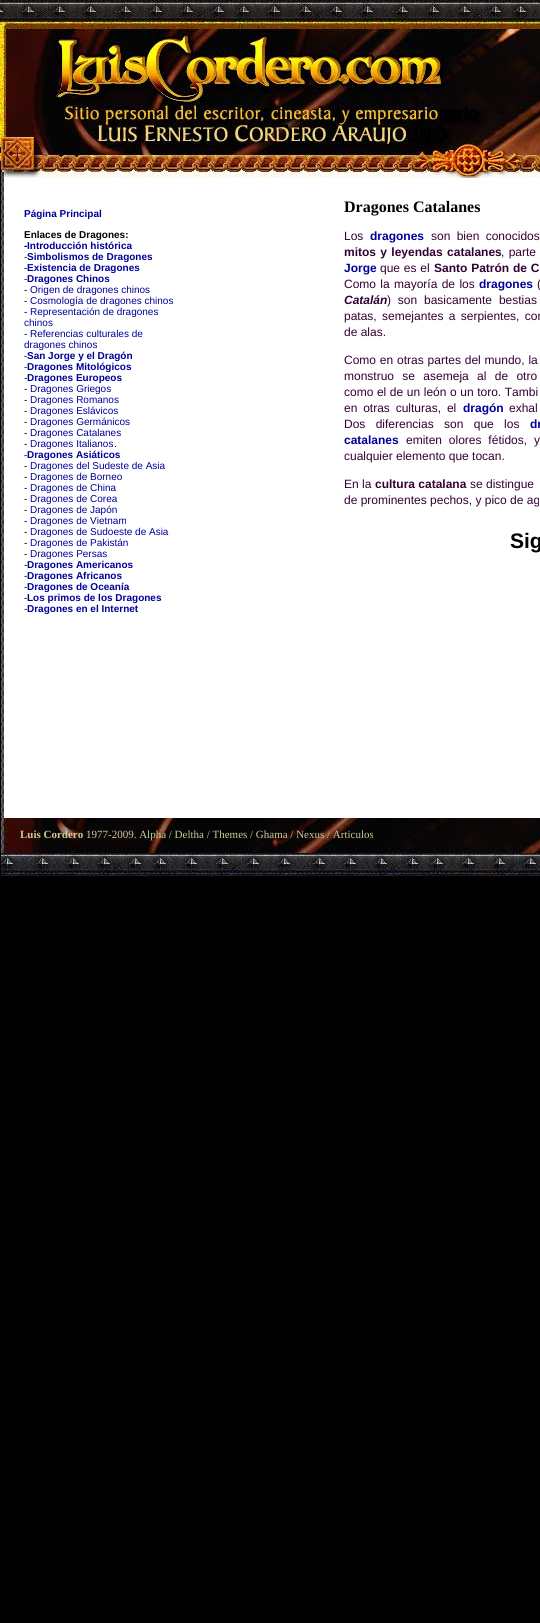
import math
import cairo



def draw_spaced(context, x, y, s, letter, word):
    context.move_to(x, y)
    for ch in s:
        context.show_text(ch)
        context.rel_move_to(letter + word * (ch == ' '), 0)


def draw_image(context, path, x, y, w, h):
    context.save()
    context.set_source_surface(cairo.ImageSurface.create_from_png(path), x, y)
    context.rectangle(x, y, w, h)
    context.fill()
    context.restore()


def draw(context):
    context.set_source_rgb(0, 0, 0)
    context.paint()
    draw_image(context, "images/1.png", 0, 0, 540, 1)
    draw_image(context, "images/2.png", 0, 1, 540, 177)
    draw_image(context, "images/3.png", 0, 178, 4, 640)
    context.set_source_rgb(1, 1, 1)
    context.rectangle(4, 178, 536, 640)
    context.fill()
    draw_image(context, "images/4.png", 0, 818, 540, 59)
    context.select_font_face("Liberation Sans", cairo.FontSlant.NORMAL, cairo.FontWeight.BOLD)
    context.set_font_size(10)
    context.set_source_rgb(0, 0, 153 / 255)
    context.move_to(24, 217)
    context.show_text("Página Principal")
    context.set_source_rgb(0, 0, 0)
    context.move_to(24, 238)
    context.show_text("Enlaces de Dragones:")
    context.move_to(24, 249)
    context.show_text("-")
    context.set_source_rgb(0, 0, 153 / 255)
    context.move_to(27, 249)
    context.show_text("Introducción histórica")
    context.select_font_face("Liberation Sans")
    context.set_source_rgb(0, 0, 0)
    context.move_to(24, 260)
    context.show_text("-")
    context.select_font_face("Liberation Sans", cairo.FontSlant.NORMAL, cairo.FontWeight.BOLD)
    context.set_source_rgb(0, 0, 153 / 255)
    context.move_to(27, 260)
    context.show_text("Simbolismos de Dragones")
    context.select_font_face("Liberation Sans")
    context.set_source_rgb(0, 0, 0)
    context.move_to(24, 271)
    context.show_text("-")
    context.select_font_face("Liberation Sans", cairo.FontSlant.NORMAL, cairo.FontWeight.BOLD)
    context.set_source_rgb(0, 0, 153 / 255)
    context.move_to(27, 271)
    context.show_text("Existencia de Dragones")
    context.select_font_face("Liberation Sans")
    context.set_source_rgb(0, 0, 0)
    context.move_to(24, 282)
    context.show_text("-")
    context.select_font_face("Liberation Sans", cairo.FontSlant.NORMAL, cairo.FontWeight.BOLD)
    context.set_source_rgb(0, 0, 153 / 255)
    context.move_to(27, 282)
    context.show_text("Dragones Chinos")
    context.select_font_face("Liberation Sans")
    context.set_source_rgb(0, 0, 0)
    context.move_to(24, 293)
    context.show_text("-")
    context.set_source_rgb(0, 0, 153 / 255)
    context.move_to(30, 293)
    context.show_text("Origen de dragones chinos")
    context.set_source_rgb(0, 0, 0)
    context.move_to(24, 304)
    context.show_text("-")
    context.set_source_rgb(0, 0, 153 / 255)
    context.move_to(30, 304)
    context.show_text("Cosmología de dragones chinos")
    context.set_source_rgb(0, 0, 0)
    context.move_to(24, 315)
    context.show_text("-")
    context.set_source_rgb(0, 0, 153 / 255)
    context.move_to(30, 315)
    context.show_text("Representación de dragones")
    context.move_to(24, 326)
    context.show_text("chinos")
    context.set_source_rgb(0, 0, 0)
    context.move_to(24, 337)
    context.show_text("-")
    context.set_source_rgb(0, 0, 153 / 255)
    context.move_to(30, 337)
    context.show_text("Referencias culturales de")
    context.move_to(24, 348)
    context.show_text("dragones chinos")
    context.set_source_rgb(0, 0, 0)
    context.move_to(24, 359)
    context.show_text("-")
    context.select_font_face("Liberation Sans", cairo.FontSlant.NORMAL, cairo.FontWeight.BOLD)
    context.set_source_rgb(0, 0, 153 / 255)
    context.move_to(27, 359)
    context.show_text("San Jorge y el Dragón")
    context.select_font_face("Liberation Sans")
    context.set_source_rgb(0, 0, 0)
    context.move_to(24, 370)
    context.show_text("-")
    context.select_font_face("Liberation Sans", cairo.FontSlant.NORMAL, cairo.FontWeight.BOLD)
    context.set_source_rgb(0, 0, 153 / 255)
    context.move_to(27, 370)
    context.show_text("Dragones Mitológicos")
    context.select_font_face("Liberation Sans")
    context.set_source_rgb(0, 0, 0)
    context.move_to(24, 381)
    context.show_text("-")
    context.select_font_face("Liberation Sans", cairo.FontSlant.NORMAL, cairo.FontWeight.BOLD)
    context.set_source_rgb(0, 0, 153 / 255)
    context.move_to(27, 381)
    context.show_text("Dragones Europeos")
    context.select_font_face("Liberation Sans")
    context.set_source_rgb(0, 0, 0)
    context.move_to(24, 392)
    context.show_text("-")
    context.set_source_rgb(0, 0, 153 / 255)
    context.move_to(30, 392)
    context.show_text("Dragones Griegos")
    context.set_source_rgb(0, 0, 0)
    context.move_to(24, 403)
    context.show_text("-")
    context.set_source_rgb(0, 0, 153 / 255)
    context.move_to(30, 403)
    context.show_text("Dragones Romanos")
    context.set_source_rgb(0, 0, 0)
    context.move_to(24, 414)
    context.show_text("-")
    context.set_source_rgb(0, 0, 153 / 255)
    context.move_to(30, 414)
    context.show_text("Dragones Eslávicos")
    context.set_source_rgb(0, 0, 0)
    context.move_to(24, 425)
    context.show_text("-")
    context.set_source_rgb(0, 0, 153 / 255)
    context.move_to(30, 425)
    context.show_text("Dragones Germánicos")
    context.set_source_rgb(0, 0, 0)
    context.move_to(24, 436)
    context.show_text("-")
    context.set_source_rgb(0, 0, 153 / 255)
    context.move_to(30, 436)
    context.show_text("Dragones Catalanes")
    context.set_source_rgb(0, 0, 0)
    context.move_to(24, 447)
    context.show_text("-")
    context.set_source_rgb(0, 0, 153 / 255)
    context.move_to(30, 447)
    context.show_text("Dragones Italianos")
    context.set_source_rgb(0, 0, 0)
    context.move_to(114, 447)
    context.show_text(".")
    context.move_to(24, 458)
    context.show_text("-")
    context.select_font_face("Liberation Sans", cairo.FontSlant.NORMAL, cairo.FontWeight.BOLD)
    context.set_source_rgb(0, 0, 153 / 255)
    context.move_to(27, 458)
    context.show_text("Dragones Asiáticos")
    context.select_font_face("Liberation Sans")
    context.set_source_rgb(0, 0, 0)
    context.move_to(24, 469)
    context.show_text("-")
    context.set_source_rgb(0, 0, 153 / 255)
    context.move_to(30, 469)
    context.show_text("Dragones del Sudeste de Asia")
    context.set_source_rgb(0, 0, 0)
    context.move_to(24, 480)
    context.show_text("-")
    context.set_source_rgb(0, 0, 153 / 255)
    context.move_to(30, 480)
    context.show_text("Dragones de Borneo")
    context.set_source_rgb(0, 0, 0)
    context.move_to(24, 491)
    context.show_text("-")
    context.set_source_rgb(0, 0, 153 / 255)
    context.move_to(30, 491)
    context.show_text("Dragones de China")
    context.set_source_rgb(0, 0, 0)
    context.move_to(24, 502)
    context.show_text("-")
    context.set_source_rgb(0, 0, 153 / 255)
    context.move_to(30, 502)
    context.show_text("Dragones de Corea")
    context.set_source_rgb(0, 0, 0)
    context.move_to(24, 513)
    context.show_text("-")
    context.set_source_rgb(0, 0, 153 / 255)
    context.move_to(30, 513)
    context.show_text("Dragones de Japón")
    context.set_source_rgb(0, 0, 0)
    context.move_to(24, 524)
    context.show_text("-")
    context.set_source_rgb(0, 0, 153 / 255)
    context.move_to(30, 524)
    context.show_text("Dragones de Vietnam")
    context.set_source_rgb(0, 0, 0)
    context.move_to(24, 535)
    context.show_text("-")
    context.set_source_rgb(0, 0, 153 / 255)
    context.move_to(30, 535)
    context.show_text("Dragones de Sudoeste de Asia")
    context.set_source_rgb(0, 0, 0)
    context.move_to(24, 546)
    context.show_text("-")
    context.set_source_rgb(0, 0, 153 / 255)
    context.move_to(30, 546)
    context.show_text("Dragones de Pakistán")
    context.set_source_rgb(0, 0, 0)
    context.move_to(24, 557)
    context.show_text("-")
    context.set_source_rgb(0, 0, 153 / 255)
    context.move_to(30, 557)
    context.show_text("Dragones Persas")
    context.set_source_rgb(0, 0, 0)
    context.move_to(24, 568)
    context.show_text("-")
    context.select_font_face("Liberation Sans", cairo.FontSlant.NORMAL, cairo.FontWeight.BOLD)
    context.set_source_rgb(0, 0, 153 / 255)
    context.move_to(27, 568)
    context.show_text("Dragones Americanos")
    context.select_font_face("Liberation Sans")
    context.set_source_rgb(0, 0, 0)
    context.move_to(24, 579)
    context.show_text("-")
    context.select_font_face("Liberation Sans", cairo.FontSlant.NORMAL, cairo.FontWeight.BOLD)
    context.set_source_rgb(0, 0, 153 / 255)
    context.move_to(27, 579)
    context.show_text("Dragones Africanos")
    context.select_font_face("Liberation Sans")
    context.set_source_rgb(0, 0, 0)
    context.move_to(24, 590)
    context.show_text("-")
    context.select_font_face("Liberation Sans", cairo.FontSlant.NORMAL, cairo.FontWeight.BOLD)
    context.set_source_rgb(0, 0, 153 / 255)
    context.move_to(27, 590)
    context.show_text("Dragones de Oceanía")
    context.select_font_face("Liberation Sans")
    context.set_source_rgb(0, 0, 0)
    context.move_to(24, 601)
    context.show_text("-")
    context.select_font_face("Liberation Sans", cairo.FontSlant.NORMAL, cairo.FontWeight.BOLD)
    context.set_source_rgb(0, 0, 153 / 255)
    context.move_to(27, 601)
    context.show_text("Los primos de los Dragones")
    context.select_font_face("Liberation Sans")
    context.set_source_rgb(0, 0, 0)
    context.move_to(24, 612)
    context.show_text("-")
    context.select_font_face("Liberation Sans", cairo.FontSlant.NORMAL, cairo.FontWeight.BOLD)
    context.set_source_rgb(0, 0, 153 / 255)
    context.move_to(27, 612)
    context.show_text("Dragones en el Internet")
    context.select_font_face("Liberation Serif", cairo.FontSlant.NORMAL, cairo.FontWeight.BOLD)
    context.set_font_size(16)
    context.set_source_rgb(0, 0, 0)
    context.move_to(344, 212)
    context.show_text("Dragones Catalanes")
    context.select_font_face("Liberation Sans")
    context.set_font_size(12)
    context.set_source_rgb(51 / 255, 0, 51 / 255)
    context.move_to(344, 240)
    context.show_text("Los")
    context.select_font_face("Liberation Sans", cairo.FontSlant.NORMAL, cairo.FontWeight.BOLD)
    context.set_source_rgb(0, 0, 153 / 255)
    context.move_to(370, 240)
    context.show_text("dragones")
    context.select_font_face("Liberation Sans")
    context.set_source_rgb(51 / 255, 0, 51 / 255)
    draw_spaced(context, 431, 240, "son bien conocidos", 0, 3)
    context.select_font_face("Liberation Sans", cairo.FontSlant.NORMAL, cairo.FontWeight.BOLD)
    draw_spaced(context, 344, 256, "mitos y leyendas catalanes", 0, 1)
    context.select_font_face("Liberation Sans")
    draw_spaced(context, 501, 256, ", parte", 0, 1)
    context.select_font_face("Liberation Sans", cairo.FontSlant.NORMAL, cairo.FontWeight.BOLD)
    context.set_source_rgb(0, 0, 153 / 255)
    context.move_to(344, 272)
    context.show_text("Jorge")
    context.select_font_face("Liberation Sans")
    context.set_source_rgb(51 / 255, 0, 51 / 255)
    draw_spaced(context, 380, 272, "que es el", 0, 0.5)
    context.select_font_face("Liberation Sans", cairo.FontSlant.NORMAL, cairo.FontWeight.BOLD)
    draw_spaced(context, 434, 272, "Santo Patrón de C", 0, 0.5)
    context.select_font_face("Liberation Sans")
    draw_spaced(context, 344, 288, "Como la mayoría de los", 0, 1)
    context.select_font_face("Liberation Sans", cairo.FontSlant.NORMAL, cairo.FontWeight.BOLD)
    context.set_source_rgb(0, 0, 153 / 255)
    context.move_to(479, 288)
    context.show_text("dragones")
    context.select_font_face("Liberation Sans")
    context.set_source_rgb(51 / 255, 0, 51 / 255)
    context.move_to(537, 288)
    context.show_text("(")
    context.select_font_face("Liberation Sans", cairo.FontSlant.ITALIC, cairo.FontWeight.BOLD)
    context.move_to(344, 304)
    context.show_text("Catalán")
    context.select_font_face("Liberation Sans")
    draw_spaced(context, 387, 304, ") son basicamente bestias", 0, 3.5)
    draw_spaced(context, 344, 320, "patas, semejantes a serpientes, con", 0, 2)
    context.move_to(344, 336)
    context.show_text("de alas.")
    draw_spaced(context, 344, 364, "Como en otras partes del mundo, la", 0, 0.5)
    draw_spaced(context, 344, 380, "monstruo se asemeja al de otro", 0, 5)
    draw_spaced(context, 344, 396, "como el de un león o un toro. Tambi", 0, 0.25)
    draw_spaced(context, 344, 412, "en otras culturas, el", 0, 2.5)
    context.select_font_face("Liberation Sans", cairo.FontSlant.NORMAL, cairo.FontWeight.BOLD)
    context.set_source_rgb(0, 0, 153 / 255)
    context.move_to(463, 412)
    context.show_text("dragón")
    context.select_font_face("Liberation Sans")
    context.set_source_rgb(51 / 255, 0, 51 / 255)
    draw_spaced(context, 509, 412, "exhal", 0, 2.5)
    draw_spaced(context, 344, 428, "Dos diferencias son que los", 0, 7)
    context.select_font_face("Liberation Sans", cairo.FontSlant.NORMAL, cairo.FontWeight.BOLD)
    context.set_source_rgb(0, 0, 153 / 255)
    context.move_to(530, 428)
    context.show_text("dr")
    context.move_to(344, 444)
    context.show_text("catalanes")
    context.select_font_face("Liberation Sans")
    context.set_source_rgb(51 / 255, 0, 51 / 255)
    draw_spaced(context, 406, 444, "emiten olores fétidos, y", 0, 3.5)
    context.move_to(344, 460)
    context.show_text("cualquier elemento que tocan.")
    context.move_to(344, 488)
    context.show_text("En la")
    context.select_font_face("Liberation Sans", cairo.FontSlant.NORMAL, cairo.FontWeight.BOLD)
    context.move_to(375, 488)
    context.show_text("cultura catalana")
    context.select_font_face("Liberation Sans")
    context.move_to(470, 488)
    context.show_text("se distingue")
    context.move_to(344, 504)
    context.show_text("de prominentes pechos, y pico de ag")
    context.select_font_face("Liberation Sans", cairo.FontSlant.NORMAL, cairo.FontWeight.BOLD)
    context.set_font_size(21)
    context.set_source_rgb(0, 0, 0)
    context.move_to(510, 548)
    context.show_text("Sig")
    context.select_font_face("Liberation Serif", cairo.FontSlant.NORMAL, cairo.FontWeight.BOLD)
    context.set_font_size(11)
    context.set_source_rgb(204 / 255, 204 / 255, 153 / 255)
    context.move_to(20, 838)
    context.show_text("Luis Cordero")
    context.select_font_face("Liberation Serif")
    context.move_to(86, 838)
    context.show_text("1977-2009. Alpha / Deltha / Themes / Ghama / Nexus / Articulos")


surface = cairo.ImageSurface(cairo.Format.RGB24, 540, 1623)
context = cairo.Context(surface)
options = cairo.FontOptions()
options.set_hint_metrics(cairo.HintMetrics.OFF)
options.set_hint_style(cairo.HintStyle.NONE)
context.set_font_options(options)
context.set_miter_limit(4)
draw(context)
surface.write_to_png("out.png")
